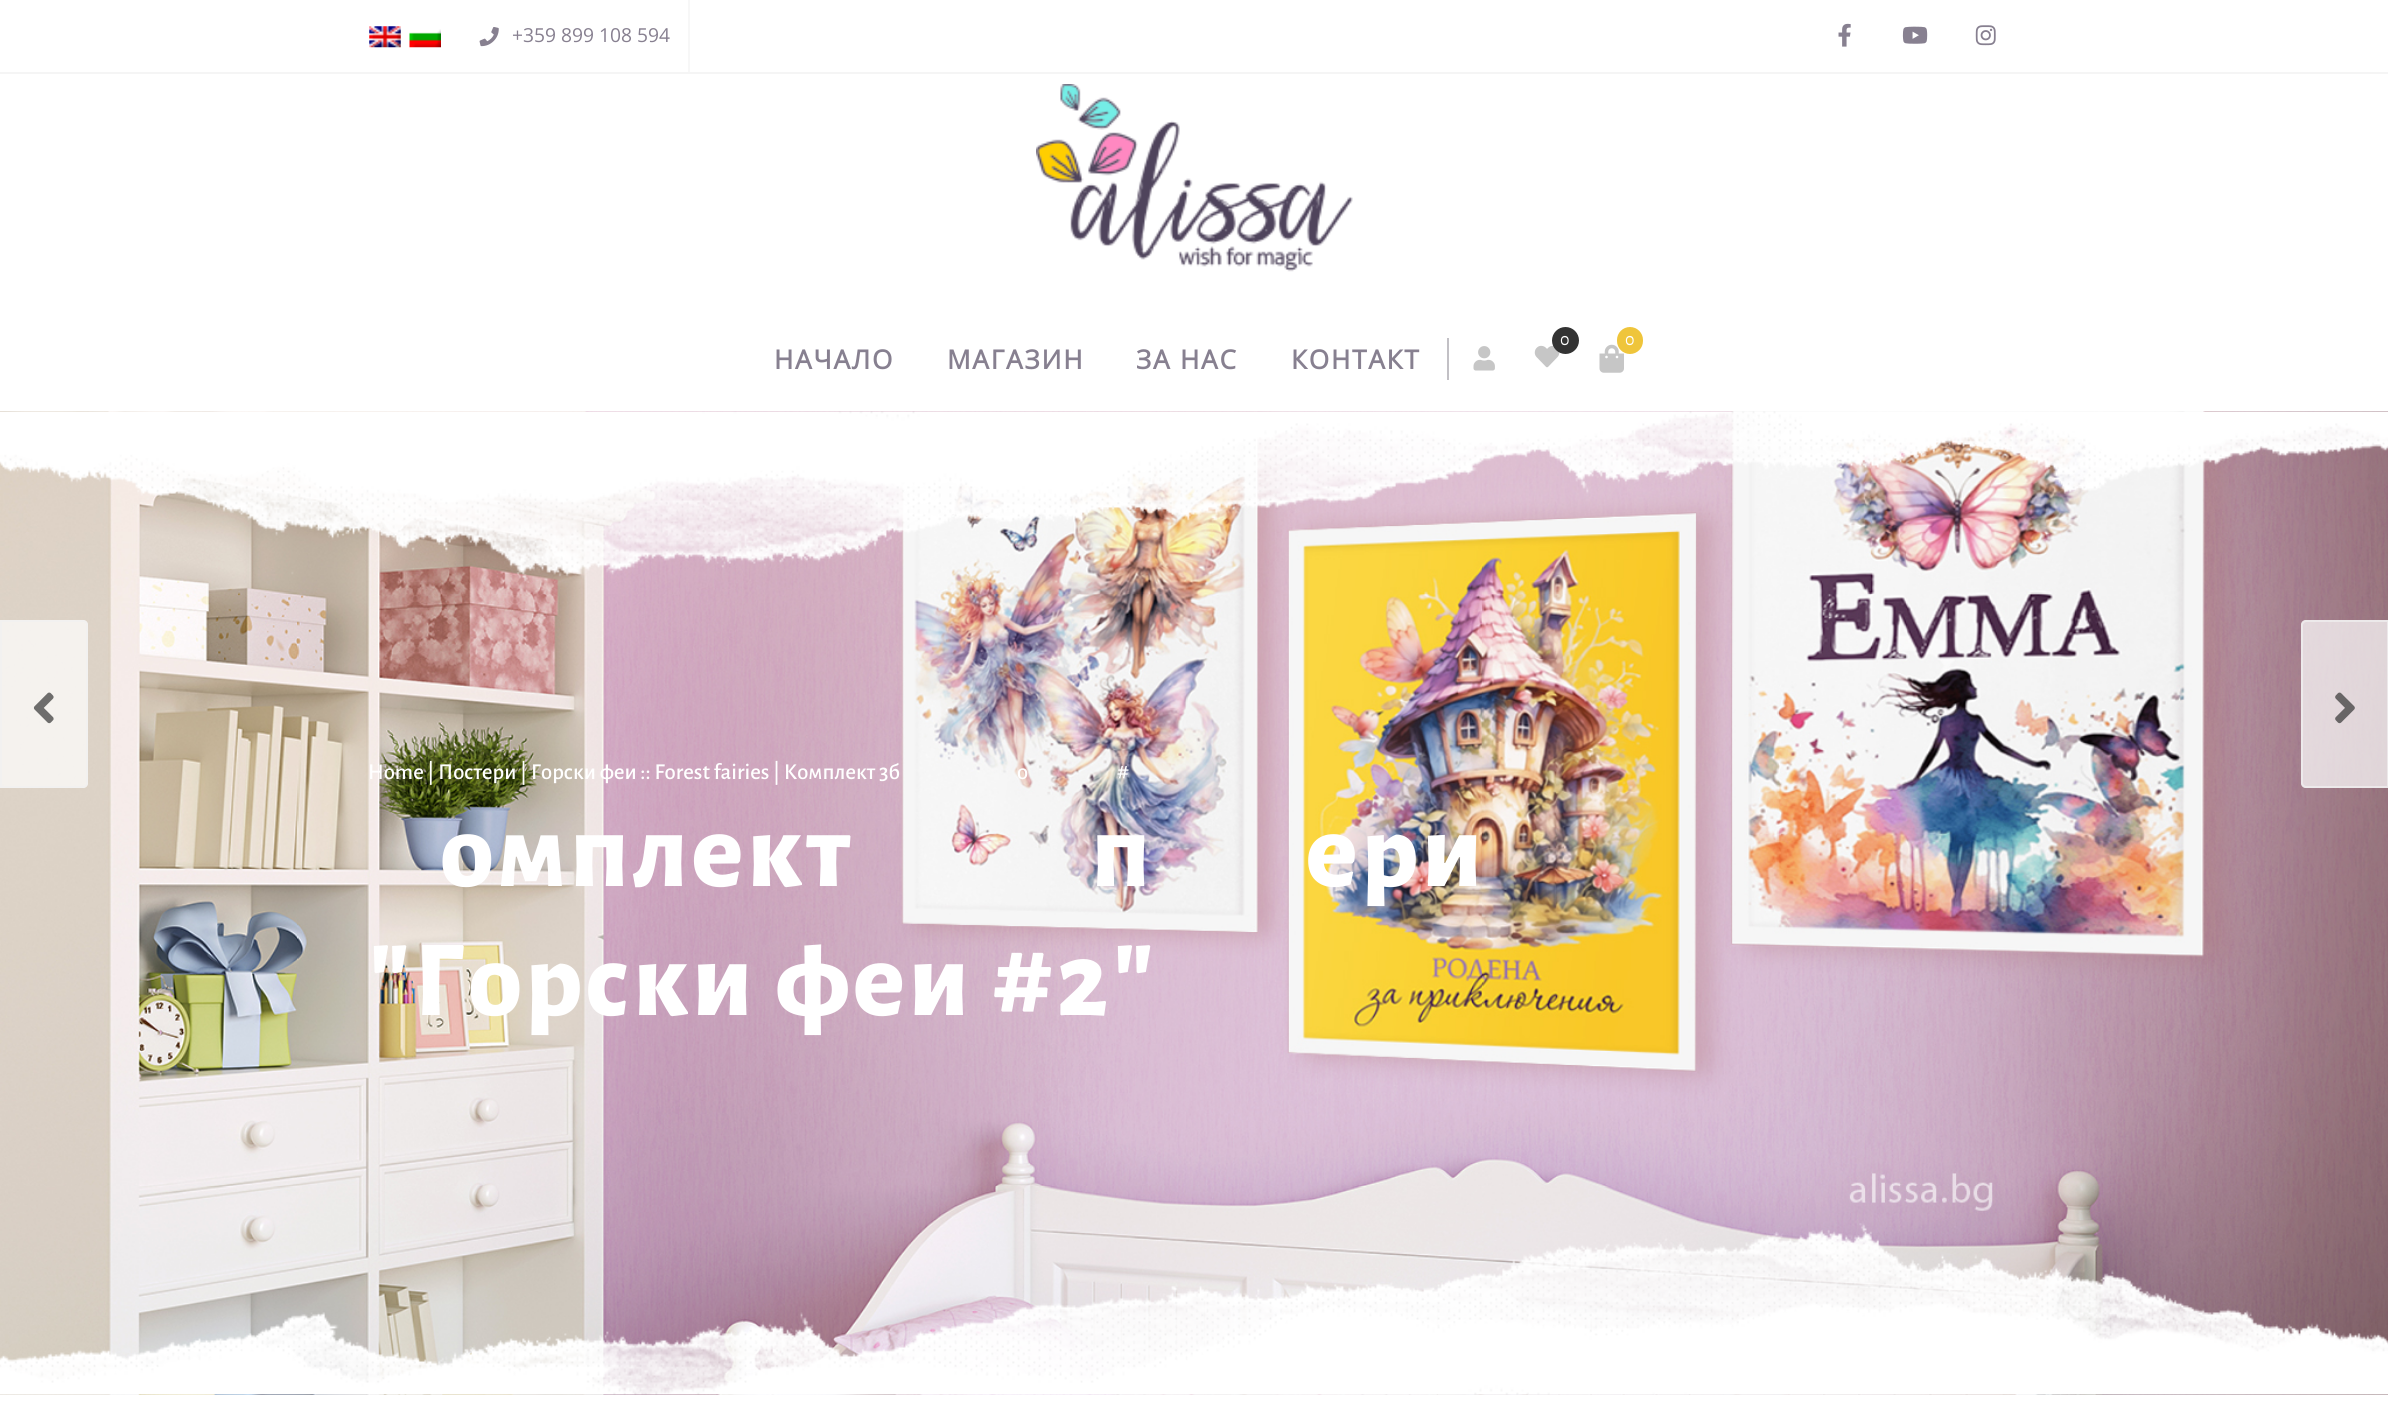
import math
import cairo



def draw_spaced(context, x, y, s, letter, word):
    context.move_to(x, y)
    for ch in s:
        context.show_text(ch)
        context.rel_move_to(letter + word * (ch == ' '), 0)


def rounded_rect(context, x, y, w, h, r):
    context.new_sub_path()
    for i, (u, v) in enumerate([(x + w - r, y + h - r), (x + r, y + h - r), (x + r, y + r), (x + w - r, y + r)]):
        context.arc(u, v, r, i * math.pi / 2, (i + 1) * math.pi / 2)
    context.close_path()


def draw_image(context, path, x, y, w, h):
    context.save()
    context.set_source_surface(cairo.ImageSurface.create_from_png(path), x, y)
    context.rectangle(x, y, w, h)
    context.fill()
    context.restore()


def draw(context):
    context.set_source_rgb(1, 1, 1)
    context.paint()
    context.set_source_rgb(245 / 255, 245 / 255, 245 / 255)
    context.rectangle(0, 72, 2388, 2)
    context.fill()
    draw_image(context, "images/1.png", 369, 26, 32, 22)
    draw_image(context, "images/2.png", 409, 29, 32, 19)
    context.set_source_rgb(247 / 255, 247 / 255, 247 / 255)
    context.rectangle(688, 0, 2, 72)
    context.fill()
    draw_image(context, "images/3.png", 479, 27, 20, 20)
    draw_image(context, "images/4.png", 1838, 23, 13, 24)
    draw_image(context, "images/5.png", 1902, 26, 26, 18)
    draw_image(context, "images/6.png", 1975, 25, 21, 21)
    draw_image(context, "images/7.png", 1036, 84, 317, 188)
    context.set_source_rgb(194 / 255, 192 / 255, 197 / 255)
    context.rectangle(1447, 338, 2, 42)
    context.fill()
    draw_image(context, "images/8.png", 1473, 346, 22, 25)
    draw_image(context, "images/9.png", 1534, 345, 26, 23)
    context.set_source_rgb(51 / 255, 51 / 255, 51 / 255)
    context.arc(1565.5, 340.5, 13.5, 0, 2 * math.pi)
    context.fill()
    draw_image(context, "images/10.png", 1599, 344, 25, 29)
    context.set_source_rgb(239 / 255, 197 / 255, 59 / 255)
    rounded_rect(context, 1617, 327, 26, 27, 13)
    context.fill()
    draw_image(context, "images/13.png", 0, 411, 2388, 984)
    context.set_source_rgba(1, 1, 1, 0.7)
    context.new_path()
    context.move_to(0, 620)
    context.line_to(83, 620)
    context.curve_to(86, 620, 88, 622, 88, 625)
    context.line_to(88, 783)
    context.curve_to(88, 786, 86, 788, 83, 788)
    context.line_to(0, 788)
    context.close_path()
    context.fill()
    context.new_path()
    context.move_to(1, 621)
    context.line_to(83, 621)
    context.curve_to(85, 621, 87, 623, 87, 625)
    context.line_to(87, 783)
    context.curve_to(87, 785, 85, 787, 83, 787)
    context.line_to(1, 787)
    context.close_path()
    context.set_source_rgba(241 / 255, 241 / 255, 241 / 255, 0.7)
    context.stroke()
    draw_image(context, "images/11.png", 33, 692, 21, 32)
    context.set_source_rgba(1, 1, 1, 0.7)
    context.new_path()
    context.move_to(2306, 620)
    context.line_to(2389, 620)
    context.line_to(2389, 788)
    context.line_to(2306, 788)
    context.curve_to(2303, 788, 2301, 786, 2301, 783)
    context.line_to(2301, 625)
    context.curve_to(2301, 622, 2303, 620, 2306, 620)
    context.close_path()
    context.fill()
    context.new_path()
    context.move_to(2306, 621)
    context.line_to(2388, 621)
    context.line_to(2388, 787)
    context.line_to(2306, 787)
    context.curve_to(2304, 787, 2302, 785, 2302, 783)
    context.line_to(2302, 625)
    context.curve_to(2302, 623, 2304, 621, 2306, 621)
    context.close_path()
    context.set_source_rgba(241 / 255, 241 / 255, 241 / 255, 0.7)
    context.stroke()
    draw_image(context, "images/12.png", 2335, 692, 20, 32)
    draw_image(context, "images/14.png", 0, 411, 2388, 172)
    draw_image(context, "images/15.png", 0, 1223, 2388, 172)
    context.select_font_face("Open Sans")
    context.set_font_size(19.25)
    context.set_source_rgb(135 / 255, 128 / 255, 144 / 255)
    context.move_to(512, 42)
    context.show_text("+359 899 108 594")
    context.select_font_face("Alegreya Sans")
    context.set_font_size(18)
    context.set_source_rgb(1, 1, 1)
    context.move_to(1560, 345)
    context.show_text("0")
    context.move_to(1625, 345)
    context.show_text("0")
    context.select_font_face("Open Sans", cairo.FontSlant.NORMAL, cairo.FontWeight.BOLD)
    context.set_font_size(26.25)
    context.set_source_rgb(135 / 255, 128 / 255, 144 / 255)
    draw_spaced(context, 774, 369, "НАЧАЛО", 1.75, 0)
    draw_spaced(context, 947, 369, "МАГАЗИН", 1.75, 0)
    draw_spaced(context, 1136, 369, "ЗА НАС", 1.75, 0)
    draw_spaced(context, 1291, 369, "КОНТАКТ", 1.75, 0)
    context.select_font_face("Alegreya Sans Medium")
    context.set_font_size(22.75)
    context.set_source_rgb(1, 1, 1)
    context.move_to(368, 779)
    context.show_text("Home | Постери | Горски феи :: Forest fairies | Комплект 3б")
    context.move_to(1017, 779)
    context.show_text("о")
    context.move_to(1117, 779)
    context.show_text("#")
    context.select_font_face("Alegreya Sans ExtraBold")
    context.set_font_size(108.5)
    draw_spaced(context, 440, 886, "омплект", 3.5, 0)
    draw_spaced(context, 1091, 886, "п", 3.5, 0)
    draw_spaced(context, 1306, 886, "ери", 3.5, 0)
    draw_spaced(context, 368, 1015, "\"Горски феи #2\"", 3.5, 0)


surface = cairo.ImageSurface(cairo.Format.RGB24, 2388, 1406)
context = cairo.Context(surface)
options = cairo.FontOptions()
options.set_hint_metrics(cairo.HintMetrics.OFF)
options.set_hint_style(cairo.HintStyle.NONE)
context.set_font_options(options)
context.set_miter_limit(4)
draw(context)
surface.write_to_png("out.png")
